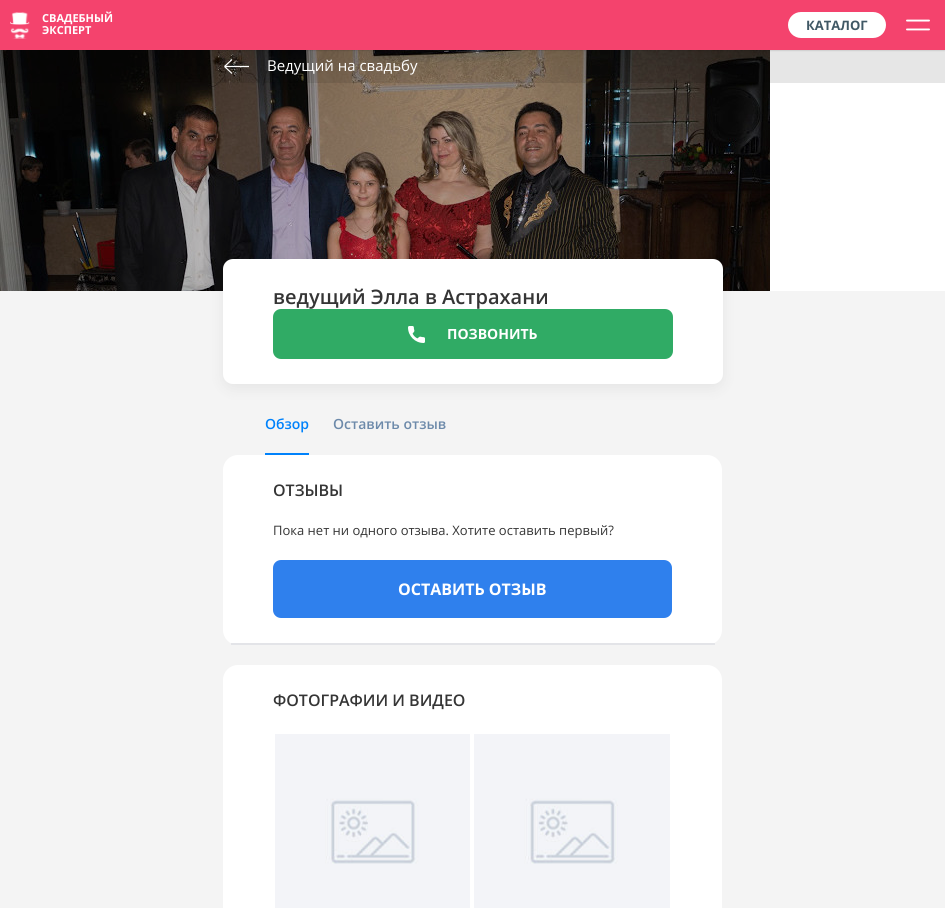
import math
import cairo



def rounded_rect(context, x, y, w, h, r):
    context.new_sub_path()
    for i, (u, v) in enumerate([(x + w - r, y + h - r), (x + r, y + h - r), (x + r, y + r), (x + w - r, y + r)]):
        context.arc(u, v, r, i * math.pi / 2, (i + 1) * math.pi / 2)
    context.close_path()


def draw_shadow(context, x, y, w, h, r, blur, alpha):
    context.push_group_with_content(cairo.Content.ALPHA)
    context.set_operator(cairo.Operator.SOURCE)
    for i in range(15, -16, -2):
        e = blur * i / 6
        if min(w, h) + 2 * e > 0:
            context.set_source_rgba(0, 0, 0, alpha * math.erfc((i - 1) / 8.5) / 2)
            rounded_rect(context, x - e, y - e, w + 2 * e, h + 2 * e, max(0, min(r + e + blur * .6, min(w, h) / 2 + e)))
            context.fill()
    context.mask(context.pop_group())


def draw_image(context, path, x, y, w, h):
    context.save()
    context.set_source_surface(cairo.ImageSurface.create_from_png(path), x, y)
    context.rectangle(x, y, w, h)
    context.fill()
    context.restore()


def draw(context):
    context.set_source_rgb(1, 1, 1)
    context.paint()
    draw_image(context, "images/3.png", 0, 50, 770, 241)
    context.set_source_rgba(0, 0, 0, 0.1)
    context.rectangle(0, 50, 945, 33)
    context.fill()
    context.set_source_rgb(0, 0, 0)
    draw_shadow(context, 0, 1, 945, 50, 0, 0.5, 0.1)
    context.set_source_rgb(244 / 255, 67 / 255, 109 / 255)
    context.rectangle(0, 0, 945, 50)
    context.fill()
    draw_image(context, "images/1.png", 10, 12, 20, 27)
    context.set_source_rgb(1, 1, 1)
    rounded_rect(context, 788, 12, 98, 26, 13)
    context.fill()
    draw_image(context, "images/2.png", 906, 19, 24, 12)
    context.set_source_rgb(244 / 255, 244 / 255, 244 / 255)
    context.rectangle(0, 291, 945, 617)
    context.fill()
    context.new_path()
    context.move_to(232, 59.5)
    context.line_to(224.5, 66.5)
    context.move_to(224.5, 66.5)
    context.line_to(232, 73.5)
    context.move_to(224.5, 66.5)
    context.line_to(249, 66.5)
    context.set_source_rgb(1, 1, 1)
    context.set_line_width(1.2)
    context.stroke()
    context.set_source_rgb(0, 130 / 255, 251 / 255)
    context.rectangle(265, 453, 44, 2)
    context.fill()
    context.set_source_rgb(1, 1, 1)
    rounded_rect(context, 223, 455, 499, 190, 15)
    context.fill()
    context.set_source_rgb(227 / 255, 228 / 255, 232 / 255)
    context.rectangle(231, 643, 484, 2)
    context.fill()
    context.set_source_rgb(47 / 255, 128 / 255, 237 / 255)
    rounded_rect(context, 273, 560, 399, 58, 8)
    context.fill()
    context.set_source_rgb(1, 1, 1)
    rounded_rect(context, 223, 665, 499, 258, 15)
    context.fill()
    draw_image(context, "images/4.png", 275, 734, 195, 174)
    draw_image(context, "images/5.png", 474, 734, 196, 174)
    context.set_source_rgb(0, 0, 0)
    draw_shadow(context, 223, 264, 500, 125, 10, 7.5, 0.06)
    context.set_source_rgb(1, 1, 1)
    rounded_rect(context, 223, 259, 500, 125, 10)
    context.fill()
    context.set_source_rgb(48 / 255, 171 / 255, 101 / 255)
    rounded_rect(context, 273, 309, 400, 50, 8)
    context.fill()
    draw_image(context, "images/6.png", 408, 326, 17, 17)
    context.select_font_face("Open Sans", cairo.FontSlant.NORMAL, cairo.FontWeight.BOLD)
    context.set_font_size(11)
    context.set_source_rgb(1, 1, 1)
    context.move_to(42, 22)
    context.show_text("СВАДЕБНЫЙ")
    context.move_to(42, 34)
    context.show_text("ЭКСПЕРТ")
    context.set_font_size(13)
    context.set_source_rgb(64 / 255, 88 / 255, 101 / 255)
    context.move_to(806, 30)
    context.show_text("КАТАЛОГ")
    context.select_font_face("Open Sans")
    context.set_font_size(15)
    context.set_source_rgb(1, 1, 1)
    context.move_to(267, 71)
    context.show_text("Ведущий на свадьбу")
    context.select_font_face("Open Sans SemiBold")
    context.set_font_size(14)
    context.set_source_rgb(0, 130 / 255, 251 / 255)
    context.move_to(265, 429)
    context.show_text("Обзор")
    context.set_source_rgb(109 / 255, 138 / 255, 170 / 255)
    context.move_to(333, 429)
    context.show_text("Оставить отзыв")
    context.set_font_size(16)
    context.set_source_rgb(53 / 255, 53 / 255, 53 / 255)
    context.move_to(273, 496)
    context.show_text("ОТЗЫВЫ")
    context.select_font_face("Open Sans")
    context.set_font_size(13)
    context.move_to(273, 535)
    context.show_text("Пока нет ни одного отзыва. Хотите оставить первый?")
    context.select_font_face("Open Sans", cairo.FontSlant.NORMAL, cairo.FontWeight.BOLD)
    context.set_font_size(16)
    context.set_source_rgb(1, 1, 1)
    context.move_to(398, 595)
    context.show_text("ОСТАВИТЬ ОТЗЫВ")
    context.select_font_face("Open Sans SemiBold")
    context.set_source_rgb(53 / 255, 53 / 255, 53 / 255)
    context.move_to(273, 706)
    context.show_text("ФОТОГРАФИИ И ВИДЕО")
    context.set_font_size(20)
    context.move_to(273, 304)
    context.show_text("ведущий Элла в Астрахани")
    context.select_font_face("Open Sans", cairo.FontSlant.NORMAL, cairo.FontWeight.BOLD)
    context.set_font_size(14)
    context.set_source_rgb(1, 1, 1)
    context.move_to(447, 339)
    context.show_text("ПОЗВОНИТЬ")


surface = cairo.ImageSurface(cairo.Format.RGB24, 945, 908)
context = cairo.Context(surface)
options = cairo.FontOptions()
options.set_hint_metrics(cairo.HintMetrics.OFF)
options.set_hint_style(cairo.HintStyle.NONE)
context.set_font_options(options)
context.set_miter_limit(4)
draw(context)
surface.write_to_png("out.png")
